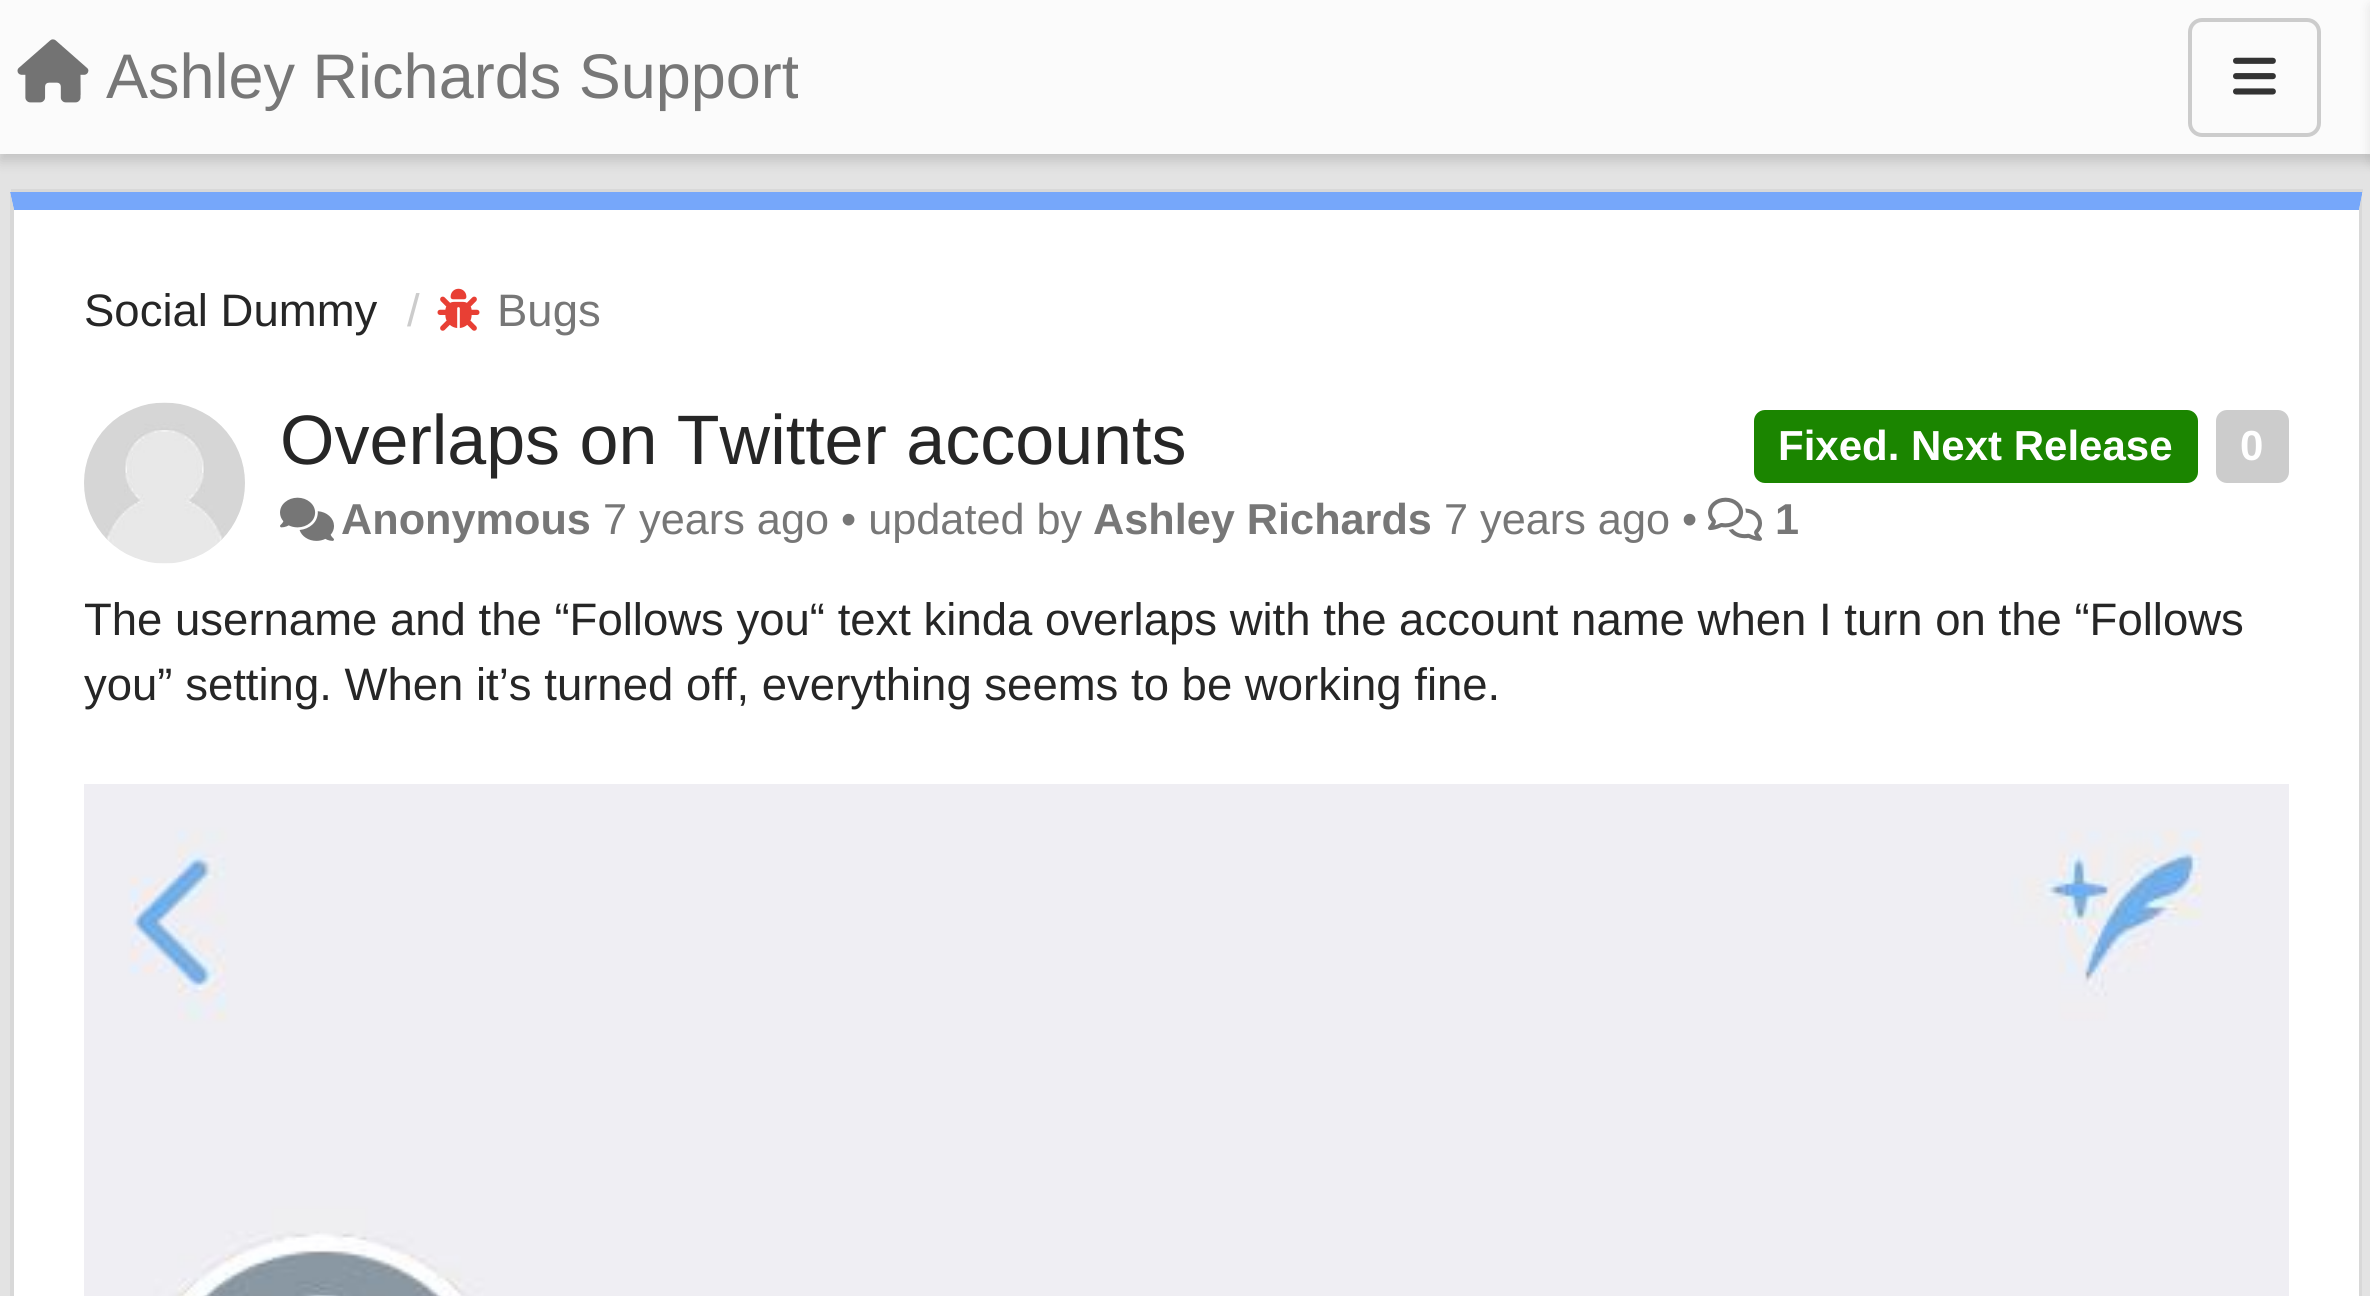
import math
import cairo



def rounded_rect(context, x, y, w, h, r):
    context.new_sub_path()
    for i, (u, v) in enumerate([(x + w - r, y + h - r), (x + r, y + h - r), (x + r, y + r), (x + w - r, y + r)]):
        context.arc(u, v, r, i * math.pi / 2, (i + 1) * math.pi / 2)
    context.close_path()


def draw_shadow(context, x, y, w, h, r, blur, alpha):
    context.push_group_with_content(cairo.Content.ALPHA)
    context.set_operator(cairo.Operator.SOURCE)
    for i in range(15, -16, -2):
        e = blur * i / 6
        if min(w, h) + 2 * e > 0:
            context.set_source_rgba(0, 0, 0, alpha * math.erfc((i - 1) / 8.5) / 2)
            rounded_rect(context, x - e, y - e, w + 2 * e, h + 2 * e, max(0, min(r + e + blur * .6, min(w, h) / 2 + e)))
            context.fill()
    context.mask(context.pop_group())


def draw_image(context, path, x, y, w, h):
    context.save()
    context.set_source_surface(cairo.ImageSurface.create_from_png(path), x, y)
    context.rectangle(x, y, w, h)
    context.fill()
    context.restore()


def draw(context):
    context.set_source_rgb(227 / 255, 227 / 255, 227 / 255)
    context.paint()
    context.set_source_rgb(0, 0, 0)
    draw_shadow(context, 0, 7, 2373, 154, 0, 7, 0.15)
    context.set_source_rgb(251 / 255, 251 / 255, 251 / 255)
    context.rectangle(0, 0, 2370, 154)
    context.fill()
    draw_image(context, "images/1.png", 17, 39, 72, 64)
    rounded_rect(context, 2190, 20, 129, 115, 12)
    context.set_source_rgb(204 / 255, 204 / 255, 204 / 255)
    context.set_line_width(4)
    context.stroke()
    draw_image(context, "images/2.png", 2233, 57, 43, 38)
    context.set_source_rgb(0, 0, 0)
    draw_shadow(context, 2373, 7, 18, 154, 0, 7, 0.15)
    context.set_source_rgb(216 / 255, 216 / 255, 216 / 255)
    context.rectangle(11, 189, 2352, 4)
    context.fill()
    context.set_source_rgb(1, 1, 1)
    context.new_path()
    context.move_to(14, 210)
    context.line_to(2359, 210)
    context.line_to(2359, 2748)
    context.curve_to(2359, 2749, 2356, 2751, 2352, 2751)
    context.line_to(21, 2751)
    context.curve_to(17, 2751, 14, 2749, 14, 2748)
    context.close_path()
    context.fill()
    context.set_source_rgb(118 / 255, 167 / 255, 250 / 255)
    context.new_path()
    context.move_to(14, 210)
    context.line_to(10, 192)
    context.line_to(2362, 192)
    context.line_to(2362, 195)
    context.line_to(2359, 210)
    context.close_path()
    context.fill()
    context.set_source_rgb(216 / 255, 216 / 255, 216 / 255)
    context.new_path()
    context.move_to(2362, 195)
    context.line_to(2362, 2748)
    context.curve_to(2362, 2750, 2361, 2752, 2360, 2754)
    context.line_to(2358, 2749)
    context.line_to(2359, 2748)
    context.line_to(2359, 210)
    context.close_path()
    context.fill()
    context.new_path()
    context.move_to(14, 210)
    context.line_to(14, 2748)
    context.line_to(15, 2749)
    context.line_to(12, 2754)
    context.line_to(10, 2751)
    context.line_to(10, 192)
    context.close_path()
    context.fill()
    draw_image(context, "images/3.png", 437, 288, 43, 43)
    draw_image(context, "images/4.png", 84, 402, 161, 162)
    context.set_source_rgb(27 / 255, 133 / 255, 0)
    rounded_rect(context, 1754, 410, 444, 73, 11)
    context.fill()
    context.set_source_rgb(204 / 255, 204 / 255, 204 / 255)
    rounded_rect(context, 2216, 410, 73, 73, 11)
    context.fill()
    draw_image(context, "images/5.png", 280, 497, 54, 44)
    draw_image(context, "images/6.png", 1708, 497, 54, 44)
    draw_image(context, "images/7.png", 84, 784, 2205, 512)
    context.save()
    context.rectangle(105, 42, 693, 70)
    context.clip()
    context.select_font_face("Liberation Sans")
    context.set_font_size(63)
    context.set_source_rgb(119 / 255, 119 / 255, 119 / 255)
    context.move_to(106, 98)
    context.show_text("Ashley Richards Support")
    context.restore()
    context.select_font_face("Liberation Sans")
    context.set_font_size(45.5)
    context.set_source_rgb(38 / 255, 38 / 255, 38 / 255)
    context.move_to(84, 326)
    context.show_text("Social Dummy")
    context.set_source_rgb(204 / 255, 204 / 255, 204 / 255)
    context.move_to(407, 326)
    context.show_text("/")
    context.set_source_rgb(119 / 255, 119 / 255, 119 / 255)
    context.move_to(497, 326)
    context.show_text("Bugs")
    context.set_font_size(70)
    context.set_source_rgb(38 / 255, 38 / 255, 38 / 255)
    context.move_to(280, 464)
    context.show_text("Overlaps on Twitter accounts")
    context.select_font_face("Liberation Sans", cairo.FontSlant.NORMAL, cairo.FontWeight.BOLD)
    context.set_font_size(42)
    context.set_source_rgb(1, 1, 1)
    context.move_to(1778, 460)
    context.show_text("Fixed. Next Release")
    context.move_to(2240, 460)
    context.show_text("0")
    context.set_font_size(43.25)
    context.set_source_rgb(119 / 255, 119 / 255, 119 / 255)
    context.move_to(341, 534)
    context.show_text("Anonymous")
    context.select_font_face("Liberation Sans")
    context.move_to(603, 534)
    context.show_text("7 years ago • updated by")
    context.select_font_face("Liberation Sans", cairo.FontSlant.NORMAL, cairo.FontWeight.BOLD)
    context.move_to(1093, 534)
    context.show_text("Ashley Richards")
    context.select_font_face("Liberation Sans")
    context.move_to(1444, 534)
    context.show_text("7 years ago •")
    context.select_font_face("Liberation Sans", cairo.FontSlant.NORMAL, cairo.FontWeight.BOLD)
    context.move_to(1775, 534)
    context.show_text("1")
    context.select_font_face("Liberation Sans")
    context.set_font_size(45.5)
    context.set_source_rgb(38 / 255, 38 / 255, 38 / 255)
    context.move_to(84, 635)
    context.show_text("The username and the “Follows you“ text kinda overlaps with the account name when I turn on the “Follows")
    context.move_to(84, 700)
    context.show_text("you” setting. When it’s turned off, everything seems to be working fine.")


surface = cairo.ImageSurface(cairo.Format.RGB24, 2370, 1296)
context = cairo.Context(surface)
options = cairo.FontOptions()
options.set_hint_metrics(cairo.HintMetrics.OFF)
options.set_hint_style(cairo.HintStyle.NONE)
context.set_font_options(options)
context.set_miter_limit(4)
draw(context)
surface.write_to_png("out.png")
